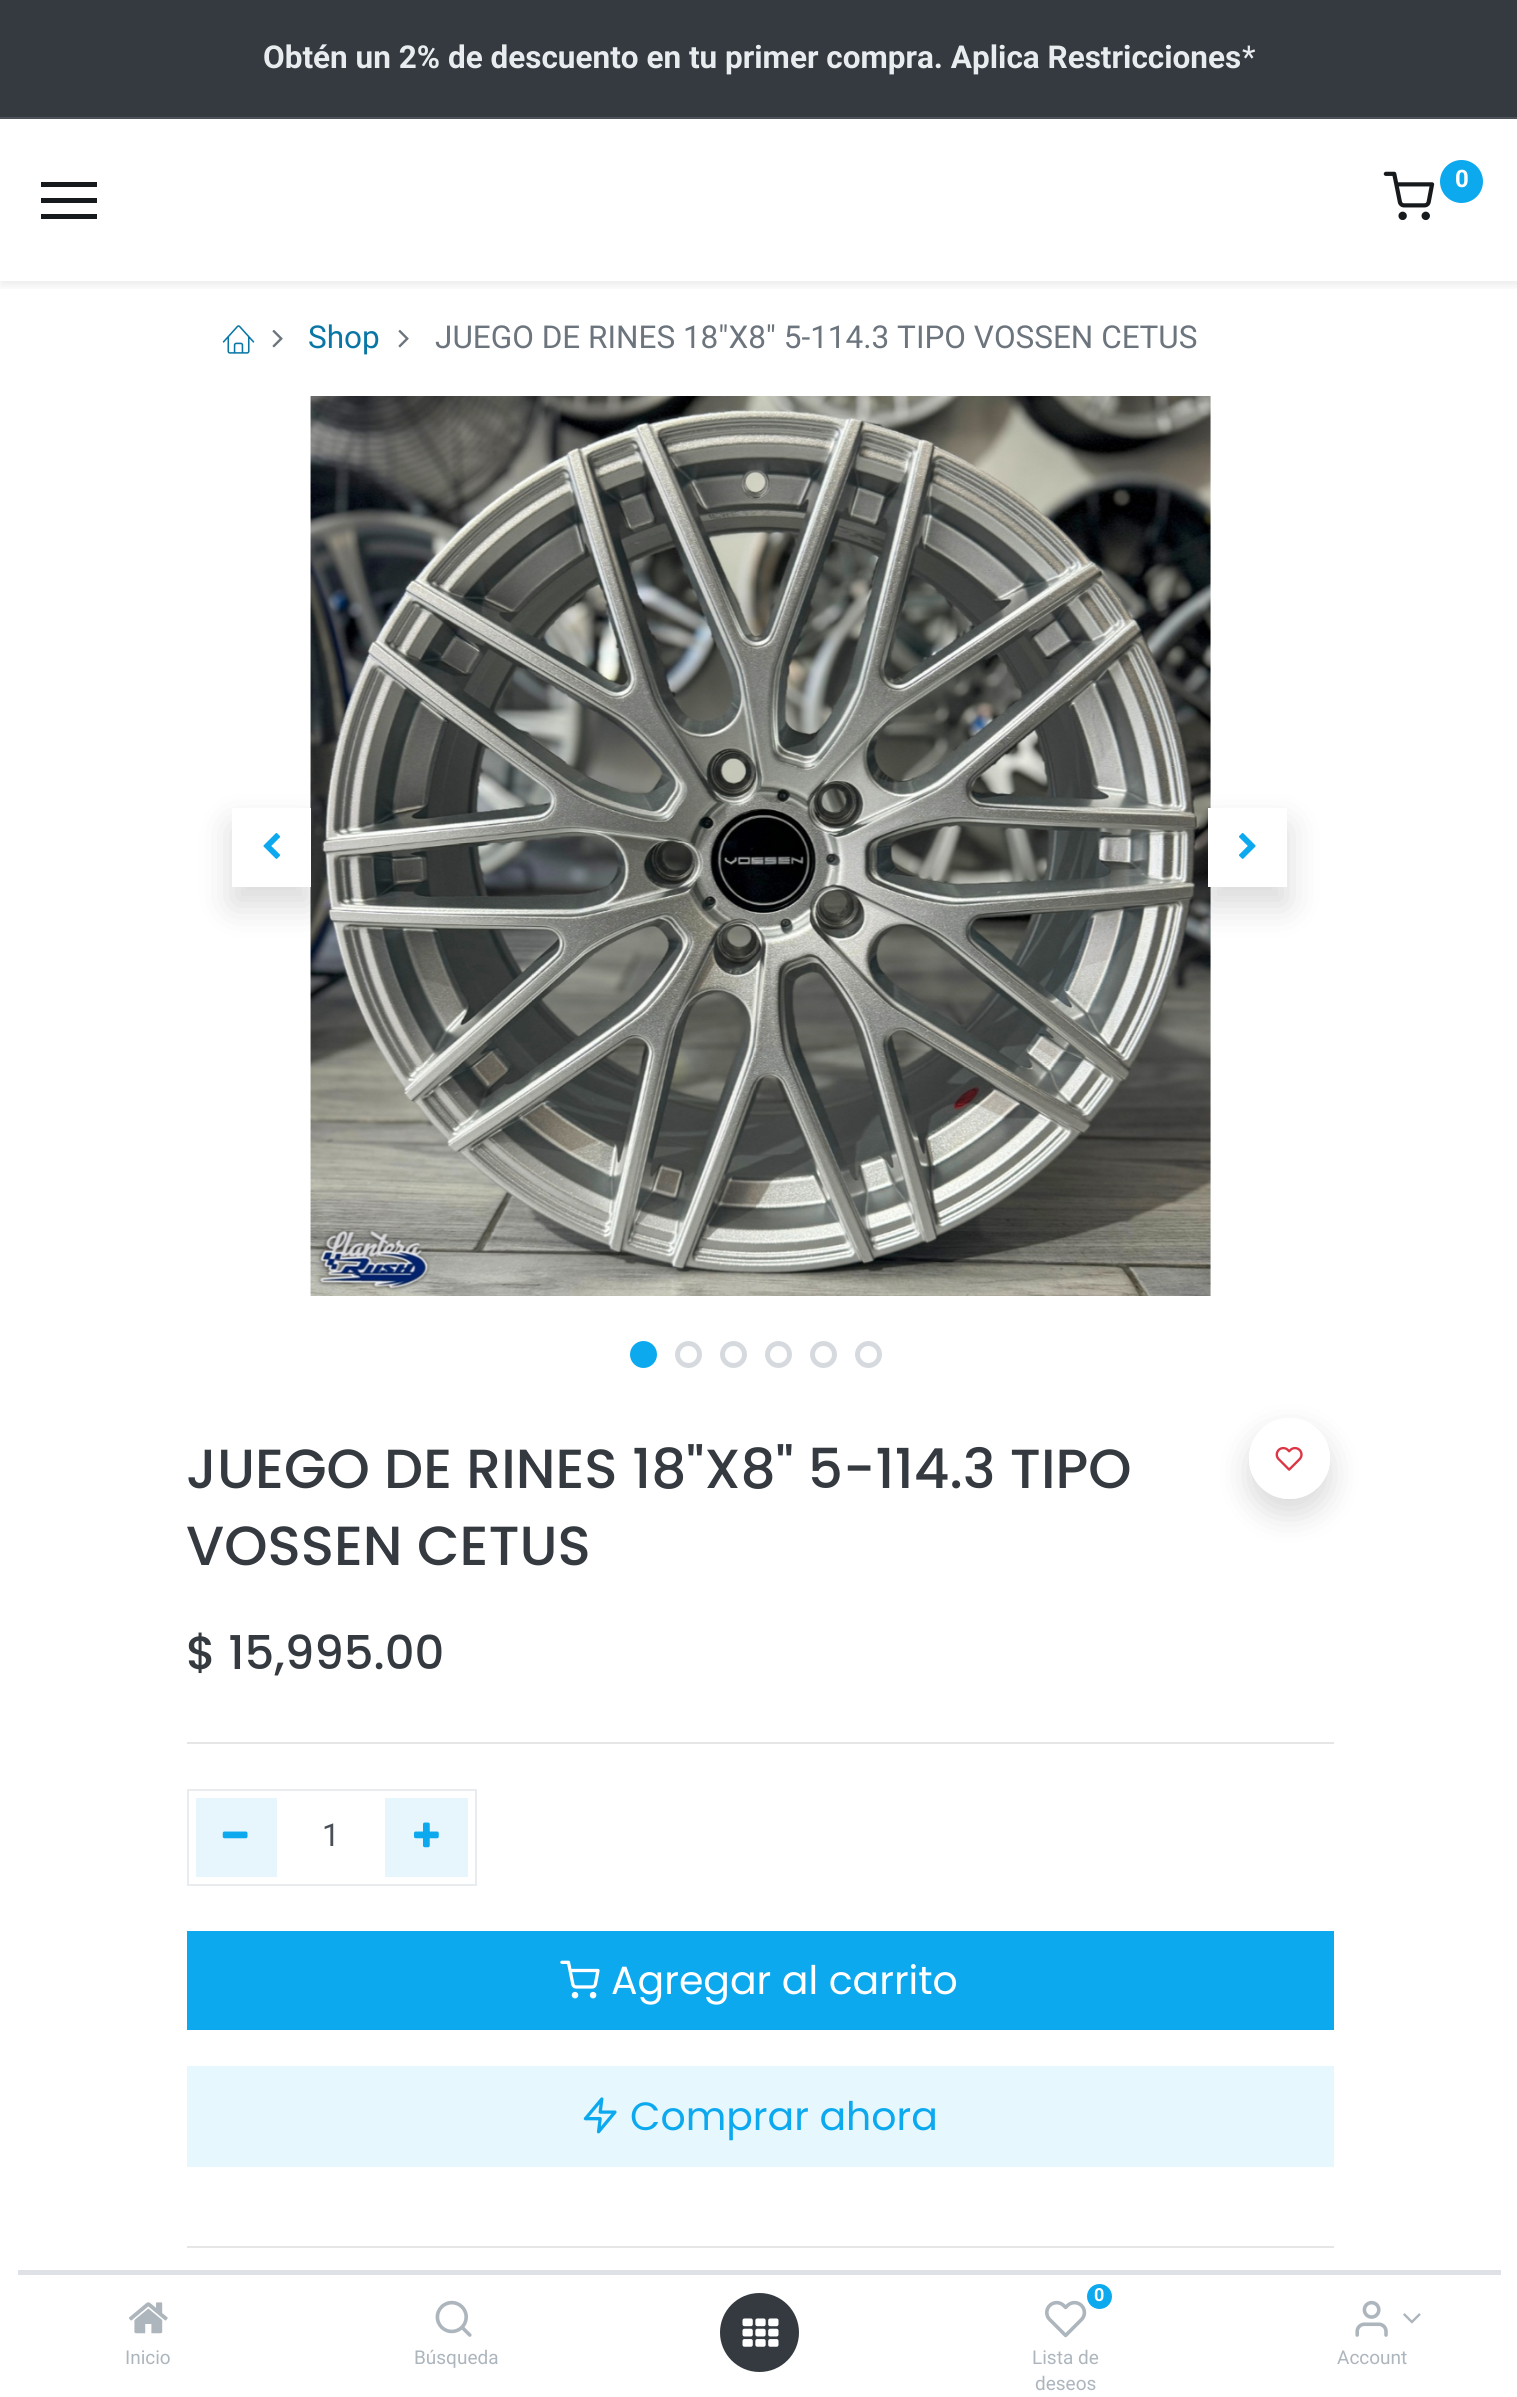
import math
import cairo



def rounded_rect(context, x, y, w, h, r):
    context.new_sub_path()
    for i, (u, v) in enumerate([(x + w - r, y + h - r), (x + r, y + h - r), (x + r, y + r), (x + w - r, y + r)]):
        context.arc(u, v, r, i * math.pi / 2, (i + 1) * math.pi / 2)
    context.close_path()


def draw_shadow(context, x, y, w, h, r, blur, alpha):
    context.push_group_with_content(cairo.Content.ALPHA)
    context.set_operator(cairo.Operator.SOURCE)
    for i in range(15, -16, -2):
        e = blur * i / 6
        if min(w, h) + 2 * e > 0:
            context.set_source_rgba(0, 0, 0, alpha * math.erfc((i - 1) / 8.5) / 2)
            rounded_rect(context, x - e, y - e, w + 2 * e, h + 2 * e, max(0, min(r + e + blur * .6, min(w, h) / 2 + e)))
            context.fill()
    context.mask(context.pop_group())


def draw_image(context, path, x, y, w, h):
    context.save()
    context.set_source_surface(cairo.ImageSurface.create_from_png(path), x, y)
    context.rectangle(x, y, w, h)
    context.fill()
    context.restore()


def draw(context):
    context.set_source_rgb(1, 1, 1)
    context.paint()
    context.set_source_rgb(52 / 255, 58 / 255, 64 / 255)
    context.rectangle(0, 0, 1517, 117)
    context.fill()
    context.set_source_rgb(76 / 255, 82 / 255, 87 / 255)
    context.rectangle(0, 117, 1517, 2)
    context.fill()
    context.save()
    context.rectangle(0, 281, 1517, 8)
    context.clip()
    context.set_source_rgb(0, 0, 0)
    draw_shadow(context, 0, 124, 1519, 162, 0, 4.5, 0.07)
    context.restore()
    draw_image(context, "images/1.png", 1383, 171, 52, 50)
    context.set_source_rgb(13 / 255, 169 / 255, 239 / 255)
    context.arc(1461.5, 181.5, 21.5, 0, 2 * math.pi)
    context.fill()
    context.set_source_rgb(23 / 255, 26 / 255, 28 / 255)
    context.rectangle(41, 182, 56, 5)
    context.fill()
    context.rectangle(41, 198, 56, 5)
    context.fill()
    context.rectangle(41, 214, 56, 5)
    context.fill()
    draw_image(context, "images/2.png", 222, 325, 33, 29)
    draw_image(context, "images/3.png", 272, 329, 11, 19)
    draw_image(context, "images/3.png", 398, 329, 11, 19)
    draw_image(context, "images/5.png", 310, 396, 901, 900)
    context.set_source_rgb(0, 0, 0)
    draw_shadow(context, 232, 826, 79, 79, 0, 18, 0.15)
    context.set_source_rgb(1, 1, 1)
    context.rectangle(232, 808, 79, 79)
    context.fill()
    draw_image(context, "images/4.png", 263, 833, 18, 26)
    context.set_source_rgb(0, 0, 0)
    draw_shadow(context, 1208, 826, 79, 79, 0, 18, 0.15)
    context.set_source_rgb(1, 1, 1)
    context.rectangle(1208, 808, 79, 79)
    context.fill()
    draw_image(context, "images/6.png", 1239, 833, 17, 26)
    context.set_source_rgb(13 / 255, 169 / 255, 239 / 255)
    context.arc(643.5, 1354.5, 11, 0, 2 * math.pi)
    context.fill_preserve()
    context.set_line_width(5)
    context.stroke()
    context.arc(688.5, 1354.5, 11, 0, 2 * math.pi)
    context.set_source_rgb(214 / 255, 218 / 255, 222 / 255)
    context.stroke()
    context.arc(733.5, 1354.5, 11, 0, 2 * math.pi)
    context.stroke()
    context.arc(778.5, 1354.5, 11, 0, 2 * math.pi)
    context.stroke()
    context.arc(823.5, 1354.5, 11, 0, 2 * math.pi)
    context.stroke()
    context.arc(868.5, 1354.5, 11, 0, 2 * math.pi)
    context.stroke()
    context.set_source_rgb(230 / 255, 230 / 255, 230 / 255)
    context.rectangle(187, 1742, 1147, 2)
    context.fill()
    context.rectangle(188, 1790, 288, 95)
    context.set_source_rgb(233 / 255, 236 / 255, 239 / 255)
    context.set_line_width(2)
    context.stroke()
    context.set_source_rgb(231 / 255, 246 / 255, 253 / 255)
    context.rectangle(196, 1798, 81, 79)
    context.fill()
    draw_image(context, "images/7.png", 222, 1831, 26, 8)
    context.rectangle(385, 1798, 83, 79)
    context.fill()
    draw_image(context, "images/8.png", 414, 1822, 25, 26)
    context.save()
    context.set_fill_rule(cairo.FillRule.EVEN_ODD)
    context.new_path()
    context.move_to(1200, 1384)
    context.line_to(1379, 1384)
    context.line_to(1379, 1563)
    context.line_to(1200, 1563)
    context.close_path()
    context.move_to(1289.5, 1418)
    context.curve_to(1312, 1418, 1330, 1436, 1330, 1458.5)
    context.curve_to(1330, 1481, 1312, 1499, 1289.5, 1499)
    context.curve_to(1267, 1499, 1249, 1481, 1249, 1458.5)
    context.curve_to(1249, 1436, 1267, 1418, 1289.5, 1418)
    context.close_path()
    context.clip()
    context.set_source_rgb(0, 0, 0)
    draw_shadow(context, 1249, 1433, 81, 81, 40.5, 16, 0.15)
    context.restore()
    context.set_source_rgb(1, 1, 1)
    context.arc(1289.5, 1458.5, 40.5, 0, 2 * math.pi)
    context.fill()
    draw_image(context, "images/9.png", 1275, 1446, 28, 25)
    context.set_source_rgb(13 / 255, 169 / 255, 239 / 255)
    context.rectangle(187, 1931, 1147, 99)
    context.fill()
    draw_image(context, "images/10.png", 560, 1960, 40, 39)
    context.set_source_rgb(231 / 255, 247 / 255, 254 / 255)
    context.rectangle(187, 2066, 1147, 101)
    context.fill()
    draw_image(context, "images/11.png", 583, 2097, 34, 37)
    context.set_source_rgb(230 / 255, 230 / 255, 230 / 255)
    context.rectangle(187, 2246, 1147, 2)
    context.fill()
    context.set_source_rgb(222 / 255, 226 / 255, 230 / 255)
    context.rectangle(18, 2270, 1483, 5)
    context.fill()
    draw_image(context, "images/12.png", 129, 2302, 39, 32)
    draw_image(context, "images/13.png", 435, 2300, 37, 37)
    context.set_source_rgb(52 / 255, 58 / 255, 64 / 255)
    context.arc(759.5, 2332.5, 39.5, 0, 2 * math.pi)
    context.fill()
    draw_image(context, "images/14.png", 742, 2318, 37, 29)
    context.set_source_rgb(13 / 255, 169 / 255, 239 / 255)
    context.arc(1099.5, 2296.5, 12.5, 0, 2 * math.pi)
    context.fill()
    draw_image(context, "images/15.png", 1045, 2300, 42, 38)
    draw_image(context, "images/16.png", 1355, 2300, 33, 37)
    draw_image(context, "images/17.png", 1403, 2313, 18, 11)
    context.select_font_face("Roboto", cairo.FontSlant.NORMAL, cairo.FontWeight.BOLD)
    context.set_font_size(31.5)
    context.set_source_rgb(233 / 255, 236 / 255, 239 / 255)
    context.move_to(263, 68)
    context.show_text("Obtén un 2% de descuento en tu primer compra. Aplica Restricciones")
    context.select_font_face("Roboto")
    context.move_to(1242, 68)
    context.show_text("*")
    context.select_font_face("Roboto", cairo.FontSlant.NORMAL, cairo.FontWeight.BOLD)
    context.set_font_size(24)
    context.set_source_rgb(1, 1, 1)
    context.move_to(1455, 187)
    context.show_text("0")
    context.select_font_face("Roboto")
    context.set_font_size(31.5)
    context.set_source_rgb(9 / 255, 118 / 255, 166 / 255)
    context.move_to(308, 348)
    context.show_text("Shop")
    context.set_source_rgb(108 / 255, 117 / 255, 125 / 255)
    context.move_to(435, 348)
    context.show_text("JUEGO DE RINES 18\"X8\" 5-114.3 TIPO VOSSEN CETUS")
    context.select_font_face("Poppins Medium")
    context.set_font_size(55.1)
    context.set_source_rgb(52 / 255, 58 / 255, 64 / 255)
    context.move_to(186, 1488)
    context.show_text("JUEGO DE RINES 18\"X8\" 5-114.3 TIPO")
    context.move_to(186, 1565)
    context.show_text("VOSSEN CETUS")
    context.set_font_size(46.5)
    context.move_to(186, 1669)
    context.show_text("$ 15,995.00")
    context.select_font_face("Roboto")
    context.set_font_size(31.5)
    context.set_source_rgb(73 / 255, 80 / 255, 87 / 255)
    context.move_to(322, 1846)
    context.show_text("1")
    context.select_font_face("Poppins")
    context.set_font_size(39.4)
    context.set_source_rgb(1, 1, 1)
    context.move_to(611, 1994)
    context.show_text("Agregar al carrito")
    context.set_source_rgb(13 / 255, 169 / 255, 239 / 255)
    context.move_to(630, 2130)
    context.show_text("Comprar ahora")
    context.select_font_face("Roboto")
    context.set_font_size(19)
    context.set_source_rgb(173 / 255, 181 / 255, 189 / 255)
    context.move_to(125, 2364)
    context.show_text("Inicio")
    context.move_to(414, 2364)
    context.show_text("Búsqueda")
    context.select_font_face("Roboto", cairo.FontSlant.NORMAL, cairo.FontWeight.BOLD)
    context.set_font_size(18)
    context.set_source_rgb(1, 1, 1)
    context.move_to(1094, 2301)
    context.show_text("0")
    context.select_font_face("Roboto")
    context.set_font_size(19)
    context.set_source_rgb(173 / 255, 181 / 255, 189 / 255)
    context.move_to(1032, 2364)
    context.show_text("Lista de")
    context.move_to(1035, 2390)
    context.show_text("deseos")
    context.move_to(1337, 2364)
    context.show_text("Account")


surface = cairo.ImageSurface(cairo.Format.RGB24, 1517, 2397)
context = cairo.Context(surface)
options = cairo.FontOptions()
options.set_hint_metrics(cairo.HintMetrics.OFF)
options.set_hint_style(cairo.HintStyle.NONE)
context.set_font_options(options)
context.set_miter_limit(4)
draw(context)
surface.write_to_png("out.png")
